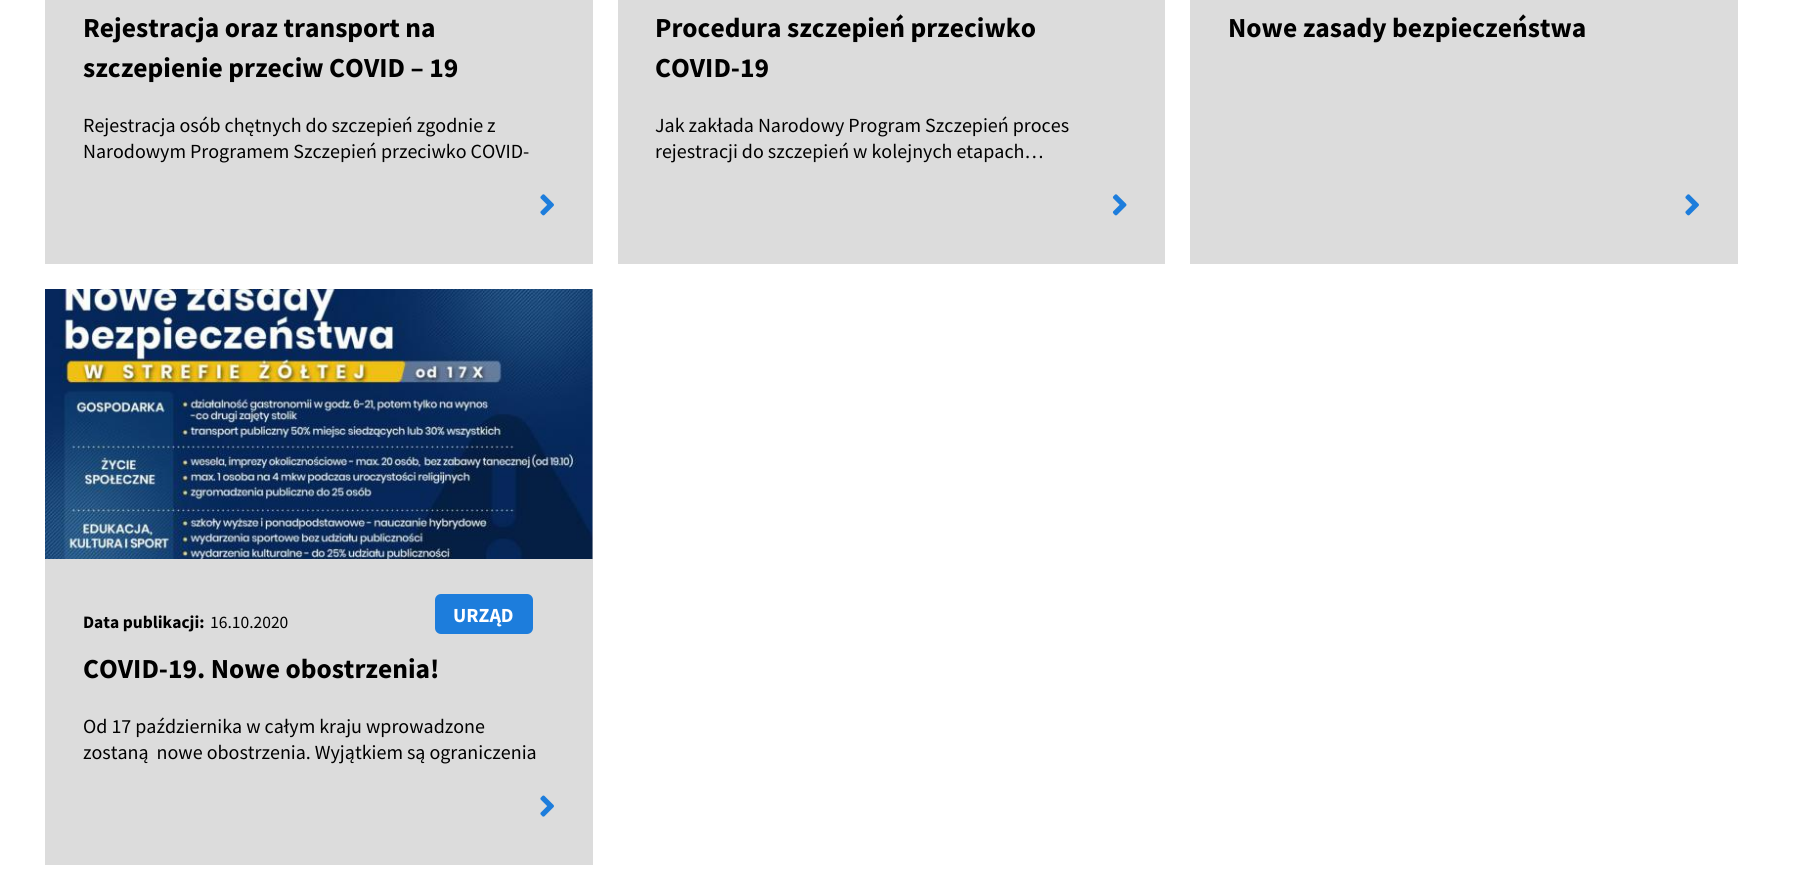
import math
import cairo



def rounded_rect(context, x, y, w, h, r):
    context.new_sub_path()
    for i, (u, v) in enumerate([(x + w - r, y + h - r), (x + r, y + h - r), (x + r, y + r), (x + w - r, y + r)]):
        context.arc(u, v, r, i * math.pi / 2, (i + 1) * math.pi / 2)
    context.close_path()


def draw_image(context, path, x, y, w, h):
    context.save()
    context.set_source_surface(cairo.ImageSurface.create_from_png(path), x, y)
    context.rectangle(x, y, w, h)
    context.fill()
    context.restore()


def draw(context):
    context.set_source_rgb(1, 1, 1)
    context.paint()
    context.set_source_rgb(220 / 255, 220 / 255, 220 / 255)
    context.rectangle(45, 0, 548, 264)
    context.fill()
    draw_image(context, "images/1.png", 540, 194, 14, 22)
    context.rectangle(618, 0, 547, 264)
    context.fill()
    draw_image(context, "images/2.png", 1112, 194, 15, 22)
    context.rectangle(1190, 0, 548, 264)
    context.fill()
    draw_image(context, "images/1.png", 1685, 194, 14, 22)
    context.rectangle(45, 289, 548, 576)
    context.fill()
    draw_image(context, "images/3.png", 45, 289, 548, 270)
    context.set_source_rgb(29 / 255, 125 / 255, 220 / 255)
    rounded_rect(context, 435, 594, 98, 40, 6)
    context.fill()
    draw_image(context, "images/4.png", 540, 795, 14, 22)
    context.select_font_face("Source Sans Pro", cairo.FontSlant.NORMAL, cairo.FontWeight.BOLD)
    context.set_font_size(27.5)
    context.set_source_rgb(0, 0, 0)
    context.move_to(83, 37)
    context.show_text("Rejestracja oraz transport na")
    context.move_to(83, 77)
    context.show_text("szczepienie przeciw COVID – 19")
    context.select_font_face("Source Sans Pro")
    context.set_font_size(20)
    context.move_to(83, 132)
    context.show_text("Rejestracja osób chętnych do szczepień zgodnie z")
    context.move_to(83, 158)
    context.show_text("Narodowym Programem Szczepień przeciwko COVID-")
    context.select_font_face("Source Sans Pro", cairo.FontSlant.NORMAL, cairo.FontWeight.BOLD)
    context.set_font_size(27.5)
    context.move_to(655, 37)
    context.show_text("Procedura szczepień przeciwko")
    context.move_to(655, 77)
    context.show_text("COVID-19")
    context.select_font_face("Source Sans Pro")
    context.set_font_size(20)
    context.move_to(655, 132)
    context.show_text("Jak zakłada Narodowy Program Szczepień proces")
    context.move_to(655, 158)
    context.show_text("rejestracji do szczepień w kolejnych etapach…")
    context.select_font_face("Source Sans Pro", cairo.FontSlant.NORMAL, cairo.FontWeight.BOLD)
    context.set_font_size(27.5)
    context.move_to(1228, 37)
    context.show_text("Nowe zasady bezpieczeństwa")
    context.set_font_size(17.5)
    context.move_to(83, 628)
    context.show_text("Data publikacji:")
    context.select_font_face("Source Sans Pro")
    context.move_to(210, 628)
    context.show_text("16.10.2020")
    context.select_font_face("Source Sans Pro", cairo.FontSlant.NORMAL, cairo.FontWeight.BOLD)
    context.set_font_size(20)
    context.set_source_rgb(1, 1, 1)
    context.move_to(453, 622)
    context.show_text("URZĄD")
    context.set_font_size(27.5)
    context.set_source_rgb(0, 0, 0)
    context.move_to(83, 678)
    context.show_text("COVID-19. Nowe obostrzenia!")
    context.select_font_face("Source Sans Pro")
    context.set_font_size(20)
    context.move_to(83, 733)
    context.show_text("Od 17 października w całym kraju wprowadzone")
    context.move_to(83, 759)
    context.show_text("zostaną  nowe obostrzenia. Wyjątkiem są ograniczenia")


surface = cairo.ImageSurface(cairo.Format.RGB24, 1799, 881)
context = cairo.Context(surface)
options = cairo.FontOptions()
options.set_hint_metrics(cairo.HintMetrics.OFF)
options.set_hint_style(cairo.HintStyle.NONE)
context.set_font_options(options)
context.set_miter_limit(4)
draw(context)
surface.write_to_png("out.png")
